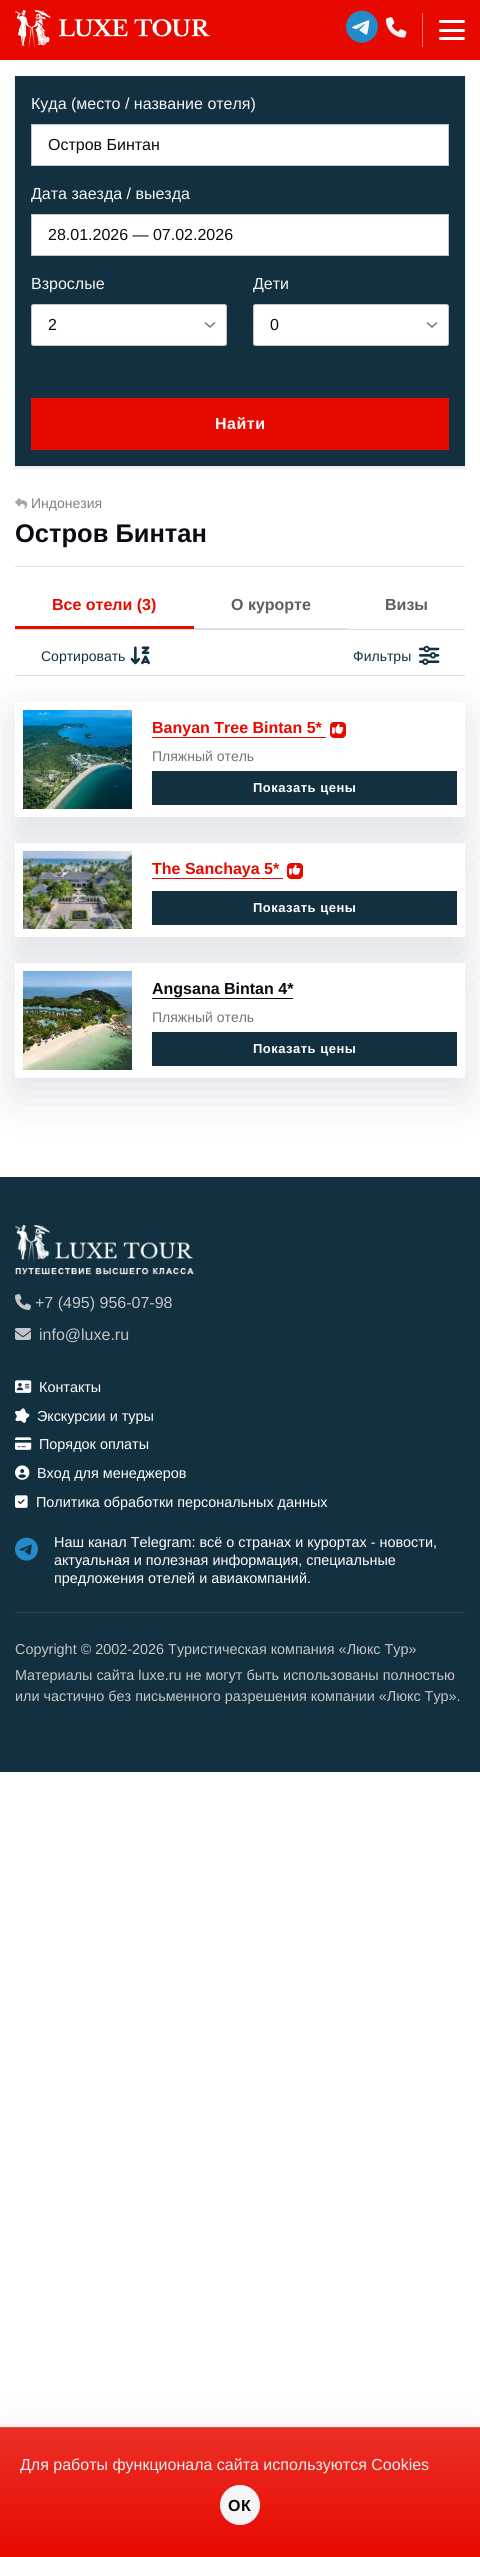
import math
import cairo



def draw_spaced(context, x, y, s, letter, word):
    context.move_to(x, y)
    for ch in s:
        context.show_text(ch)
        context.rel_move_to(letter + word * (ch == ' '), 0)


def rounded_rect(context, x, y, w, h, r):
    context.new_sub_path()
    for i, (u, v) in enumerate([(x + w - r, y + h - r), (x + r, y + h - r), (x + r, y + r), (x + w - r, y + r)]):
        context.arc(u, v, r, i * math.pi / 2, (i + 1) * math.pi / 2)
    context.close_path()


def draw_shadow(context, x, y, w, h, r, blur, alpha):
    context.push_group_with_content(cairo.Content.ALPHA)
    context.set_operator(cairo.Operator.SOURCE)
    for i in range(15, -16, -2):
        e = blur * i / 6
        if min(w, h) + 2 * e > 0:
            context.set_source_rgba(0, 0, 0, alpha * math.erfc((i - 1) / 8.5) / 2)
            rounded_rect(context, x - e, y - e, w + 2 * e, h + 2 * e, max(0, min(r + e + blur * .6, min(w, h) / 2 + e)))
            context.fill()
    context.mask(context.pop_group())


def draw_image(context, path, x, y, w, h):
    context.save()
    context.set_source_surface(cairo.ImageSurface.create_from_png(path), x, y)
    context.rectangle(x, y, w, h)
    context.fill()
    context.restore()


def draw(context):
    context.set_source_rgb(1, 1, 1)
    context.paint()
    context.set_source_rgb(231 / 255, 9 / 255, 0)
    context.rectangle(0, 0, 480, 60)
    context.fill()
    draw_image(context, "images/1.png", 15, 10, 195, 39)
    context.set_source_rgb(245 / 255, 245 / 255, 246 / 255)
    context.arc(362, 27, 12, 0, 2 * math.pi)
    context.fill()
    draw_image(context, "images/2.png", 346, 10, 32, 33)
    draw_image(context, "images/3.png", 386, 17, 21, 21)
    context.set_source_rgb(238 / 255, 127 / 255, 123 / 255)
    context.rectangle(422, 13, 1, 34)
    context.fill()
    context.set_source_rgb(1, 1, 1)
    rounded_rect(context, 439, 20, 26, 3, 1.5)
    context.fill()
    rounded_rect(context, 439, 29, 26, 3, 1.5)
    context.fill()
    rounded_rect(context, 439, 37, 26, 3, 1.5)
    context.fill()
    context.set_source_rgb(29 / 255, 58 / 255, 83 / 255)
    draw_shadow(context, 15, 78, 450, 390, 0, 2, 0.15)
    context.set_source_rgb(19 / 255, 48 / 255, 65 / 255)
    context.rectangle(15, 76, 450, 390)
    context.fill()
    context.set_source_rgb(1, 1, 1)
    context.rectangle(31.5, 124.5, 417, 41)
    context.fill_preserve()
    context.set_source_rgb(197 / 255, 197 / 255, 199 / 255)
    context.set_line_width(1)
    context.stroke()
    context.set_source_rgb(1, 1, 1)
    context.rectangle(31.5, 214.5, 417, 41)
    context.fill_preserve()
    context.set_source_rgb(197 / 255, 197 / 255, 199 / 255)
    context.stroke()
    context.set_source_rgb(1, 1, 1)
    rounded_rect(context, 31.5, 304.5, 195, 41, 2)
    context.fill_preserve()
    context.set_source_rgb(197 / 255, 197 / 255, 199 / 255)
    context.stroke()
    context.new_path()
    context.move_to(205.5, 323)
    context.line_to(210, 327)
    context.line_to(214.5, 323)
    context.set_source_rgb(116 / 255, 117 / 255, 121 / 255)
    context.set_line_width(1.5)
    context.set_line_cap(cairo.LineCap.ROUND)
    context.set_line_join(cairo.LineJoin.ROUND)
    context.stroke()
    context.set_source_rgb(1, 1, 1)
    rounded_rect(context, 253.5, 304.5, 195, 41, 2)
    context.fill_preserve()
    context.set_source_rgb(197 / 255, 197 / 255, 199 / 255)
    context.set_line_width(1)
    context.set_line_cap(cairo.LineCap.BUTT)
    context.set_line_join(cairo.LineJoin.MITER)
    context.stroke()
    context.new_path()
    context.move_to(427.5, 323)
    context.line_to(432, 327)
    context.line_to(436.5, 323)
    context.set_source_rgb(116 / 255, 117 / 255, 121 / 255)
    context.set_line_width(1.5)
    context.set_line_cap(cairo.LineCap.ROUND)
    context.set_line_join(cairo.LineJoin.ROUND)
    context.stroke()
    context.set_source_rgb(231 / 255, 10 / 255, 0)
    context.rectangle(31, 398, 418, 52)
    context.fill()
    draw_image(context, "images/4.png", 15, 498, 13, 11)
    context.set_source_rgb(225 / 255, 225 / 255, 226 / 255)
    context.rectangle(15, 566, 450, 1)
    context.fill()
    context.set_source_rgb(223 / 255, 223 / 255, 227 / 255)
    context.rectangle(15, 629, 450, 1)
    context.fill()
    context.set_source_rgb(231 / 255, 9 / 255, 0)
    context.rectangle(15, 626, 179, 3)
    context.fill()
    context.set_source_rgb(223 / 255, 223 / 255, 227 / 255)
    context.rectangle(194, 628, 154, 1)
    context.fill()
    context.rectangle(15, 675, 450, 1)
    context.fill()
    draw_image(context, "images/5.png", 130, 646, 20, 19)
    draw_image(context, "images/6.png", 419, 645, 21, 20)
    context.save()
    context.set_fill_rule(cairo.FillRule.EVEN_ODD)
    context.new_path()
    context.move_to(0, 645)
    context.line_to(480, 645)
    context.line_to(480, 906)
    context.line_to(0, 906)
    context.close_path()
    context.move_to(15, 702)
    context.line_to(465, 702)
    context.line_to(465, 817)
    context.line_to(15, 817)
    context.close_path()
    context.clip()
    context.set_source_rgb(29 / 255, 58 / 255, 83 / 255)
    draw_shadow(context, 15, 718, 450, 115, 0, 24, 0.15)
    context.restore()
    draw_image(context, "images/7.png", 23, 710, 109, 99)
    context.set_source_rgb(231 / 255, 10 / 255, 0)
    context.rectangle(152, 737, 174, 1)
    context.fill()
    context.set_source_rgb(231 / 255, 9 / 255, 0)
    rounded_rect(context, 330.5, 722.5, 15, 15, 3.5)
    context.fill_preserve()
    context.set_line_width(1)
    context.set_line_cap(cairo.LineCap.BUTT)
    context.set_line_join(cairo.LineJoin.MITER)
    context.stroke()
    draw_image(context, "images/8.png", 332, 723, 12, 11)
    context.set_source_rgb(19 / 255, 48 / 255, 65 / 255)
    context.rectangle(152, 771, 305, 34)
    context.fill()
    context.set_source_rgb(29 / 255, 58 / 255, 83 / 255)
    draw_shadow(context, 15, 859, 450, 94, 0, 24, 0.15)
    context.set_source_rgb(1, 1, 1)
    context.rectangle(15, 843, 450, 94)
    context.fill()
    draw_image(context, "images/9.png", 23, 851, 109, 78)
    context.set_source_rgb(231 / 255, 10 / 255, 0)
    context.rectangle(152, 878, 131, 1)
    context.fill()
    context.set_source_rgb(231 / 255, 9 / 255, 0)
    rounded_rect(context, 287.5, 863.5, 15, 15, 3.5)
    context.fill_preserve()
    context.stroke()
    draw_image(context, "images/8.png", 289, 864, 12, 11)
    context.set_source_rgb(19 / 255, 48 / 255, 65 / 255)
    context.rectangle(152, 891, 305, 34)
    context.fill()
    context.set_source_rgb(29 / 255, 58 / 255, 83 / 255)
    draw_shadow(context, 15, 979, 450, 115, 0, 24, 0.15)
    context.set_source_rgb(1, 1, 1)
    context.rectangle(15, 963, 450, 115)
    context.fill()
    draw_image(context, "images/10.png", 23, 971, 109, 99)
    context.set_source_rgb(11 / 255, 10 / 255, 18 / 255)
    context.rectangle(152, 998, 141, 1)
    context.fill()
    context.set_source_rgb(19 / 255, 48 / 255, 65 / 255)
    context.rectangle(152, 1032, 305, 34)
    context.fill()
    context.rectangle(0, 1177, 480, 595)
    context.fill()
    draw_image(context, "images/11.png", 15, 1225, 179, 50)
    draw_image(context, "images/12.png", 15, 1294, 16, 16)
    draw_image(context, "images/13.png", 15, 1328, 16, 12)
    draw_image(context, "images/14.png", 15, 1380, 17, 13)
    draw_image(context, "images/15.png", 15, 1408, 15, 15)
    draw_image(context, "images/16.png", 15, 1437, 17, 13)
    draw_image(context, "images/17.png", 15, 1465, 15, 15)
    draw_image(context, "images/18.png", 15, 1495, 13, 13)
    draw_image(context, "images/19.png", 15, 1537, 23, 24)
    context.set_source_rgb(48 / 255, 70 / 255, 83 / 255)
    context.rectangle(15, 1612, 450, 1)
    context.fill()
    context.set_source_rgb(29 / 255, 58 / 255, 83 / 255)
    draw_shadow(context, 0, 2443, 480, 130, 0, 24, 0.15)
    gradient = cairo.LinearGradient(240, 2428, 240, 2557)
    gradient.add_color_stop_rgba(0, 235 / 255, 47 / 255, 38 / 255, 1)
    gradient.add_color_stop_rgba(1, 231 / 255, 10 / 255, 0, 1)
    context.set_source(gradient)
    context.rectangle(0, 2428, 480, 129)
    context.fill()
    context.set_source_rgb(235 / 255, 69 / 255, 62 / 255)
    context.rectangle(0, 2427, 480, 1)
    context.fill()
    context.set_source_rgb(245 / 255, 245 / 255, 246 / 255)
    context.arc(240, 2505, 19.5, 0, 2 * math.pi)
    context.fill_preserve()
    context.stroke()
    context.select_font_face("Liberation Sans")
    context.set_font_size(16)
    context.move_to(31, 109)
    context.show_text("Куда (место / название отеля)")
    context.set_source_rgb(11 / 255, 10 / 255, 18 / 255)
    context.move_to(48, 150)
    context.show_text("Остров Бинтан")
    context.set_source_rgb(245 / 255, 245 / 255, 246 / 255)
    context.move_to(31, 199)
    context.show_text("Дата заезда / выезда")
    context.set_source_rgb(11 / 255, 10 / 255, 18 / 255)
    context.move_to(48, 240)
    context.show_text("28.01.2026 — 07.02.2026")
    context.set_source_rgb(245 / 255, 245 / 255, 246 / 255)
    context.move_to(31, 289)
    context.show_text("Взрослые")
    context.set_source_rgb(11 / 255, 10 / 255, 18 / 255)
    context.move_to(48, 330)
    context.show_text("2")
    context.set_source_rgb(245 / 255, 245 / 255, 246 / 255)
    context.move_to(253, 289)
    context.show_text("Дети")
    context.set_source_rgb(11 / 255, 10 / 255, 18 / 255)
    context.move_to(270, 330)
    context.show_text("0")
    context.select_font_face("Liberation Sans", cairo.FontSlant.NORMAL, cairo.FontWeight.BOLD)
    context.set_source_rgb(1, 1, 1)
    draw_spaced(context, 215, 429, "Найти", 0.5, 0)
    context.select_font_face("Liberation Sans")
    context.set_font_size(14)
    context.set_source_rgb(128 / 255, 128 / 255, 128 / 255)
    context.move_to(31, 508)
    context.show_text("Индонезия")
    context.select_font_face("Liberation Sans", cairo.FontSlant.NORMAL, cairo.FontWeight.BOLD)
    context.set_font_size(25.5)
    context.set_source_rgb(11 / 255, 10 / 255, 18 / 255)
    context.move_to(15, 542)
    context.show_text("Остров Бинтан")
    context.set_font_size(16)
    context.set_source_rgb(231 / 255, 9 / 255, 0)
    context.move_to(52, 610)
    context.show_text("Все отели (3)")
    context.set_source_rgb(94 / 255, 94 / 255, 95 / 255)
    context.move_to(231, 610)
    context.show_text("О курорте")
    context.move_to(385, 610)
    context.show_text("Визы")
    context.select_font_face("Liberation Sans")
    context.set_font_size(14)
    context.set_source_rgb(19 / 255, 48 / 255, 65 / 255)
    context.move_to(41, 661)
    context.show_text("Сортировать")
    context.move_to(353, 661)
    context.show_text("Фильтры")
    context.select_font_face("Liberation Sans", cairo.FontSlant.NORMAL, cairo.FontWeight.BOLD)
    context.set_font_size(16)
    context.set_source_rgb(231 / 255, 9 / 255, 0)
    context.move_to(152, 733)
    context.show_text("Banyan Tree Bintan 5*")
    context.select_font_face("Liberation Sans")
    context.set_font_size(14)
    context.set_source_rgb(116 / 255, 117 / 255, 121 / 255)
    context.move_to(152, 761)
    context.show_text("Пляжный отель")
    context.select_font_face("Liberation Sans", cairo.FontSlant.NORMAL, cairo.FontWeight.BOLD)
    context.set_font_size(13)
    context.set_source_rgb(1, 1, 1)
    draw_spaced(context, 253, 792, "Показать цены", 0.5, 0)
    context.set_font_size(16)
    context.set_source_rgb(231 / 255, 9 / 255, 0)
    context.move_to(152, 874)
    context.show_text("The Sanchaya 5*")
    context.set_font_size(13)
    context.set_source_rgb(1, 1, 1)
    draw_spaced(context, 253, 912, "Показать цены", 0.5, 0)
    context.set_font_size(16)
    context.set_source_rgb(11 / 255, 10 / 255, 18 / 255)
    context.move_to(152, 994)
    context.show_text("Angsana Bintan 4*")
    context.select_font_face("Liberation Sans")
    context.set_font_size(14)
    context.set_source_rgb(116 / 255, 117 / 255, 121 / 255)
    context.move_to(152, 1022)
    context.show_text("Пляжный отель")
    context.select_font_face("Liberation Sans", cairo.FontSlant.NORMAL, cairo.FontWeight.BOLD)
    context.set_font_size(13)
    context.set_source_rgb(1, 1, 1)
    draw_spaced(context, 253, 1053, "Показать цены", 0.5, 0)
    context.select_font_face("Liberation Sans")
    context.set_font_size(16)
    context.set_source_rgb(197 / 255, 197 / 255, 199 / 255)
    context.move_to(35, 1308)
    context.show_text("+7 (495) 956-07-98")
    context.move_to(39, 1340)
    context.show_text("info@luxe.ru")
    context.set_font_size(14.4)
    context.set_source_rgb(1, 1, 1)
    context.move_to(39, 1392)
    context.show_text("Контакты")
    context.move_to(37, 1421)
    context.show_text("Экскурсии и туры")
    context.move_to(39, 1449)
    context.show_text("Порядок оплаты")
    context.move_to(37, 1478)
    context.show_text("Вход для менеджеров")
    context.move_to(36, 1507)
    context.show_text("Политика обработки персональных данных")
    context.move_to(54, 1547)
    context.show_text("Наш канал Telegram: всё о странах и курортах - новости,")
    context.move_to(54, 1565)
    context.show_text("актуальная и полезная информация, специальные")
    context.move_to(54, 1583)
    context.show_text("предложения отелей и авиакомпаний.")
    context.set_source_rgb(197 / 255, 197 / 255, 199 / 255)
    context.move_to(15, 1654)
    context.show_text("Copyright © 2002-2026 Туристическая компания «Люкс Тур»")
    context.move_to(15, 1680)
    context.show_text("Материалы сайта luxe.ru не могут быть использованы полностью")
    context.move_to(15, 1701)
    context.show_text("или частично без письменного разрешения компании «Люкс Тур».")
    context.set_font_size(16)
    context.set_source_rgb(236 / 255, 240 / 255, 241 / 255)
    context.move_to(20, 2470)
    context.show_text("Для работы функционала сайта используются Cookies")
    context.select_font_face("Liberation Sans", cairo.FontSlant.NORMAL, cairo.FontWeight.BOLD)
    context.set_source_rgb(11 / 255, 10 / 255, 18 / 255)
    draw_spaced(context, 228, 2511, "ОК", 0.5, 0)


surface = cairo.ImageSurface(cairo.Format.RGB24, 480, 2557)
context = cairo.Context(surface)
options = cairo.FontOptions()
options.set_hint_metrics(cairo.HintMetrics.OFF)
options.set_hint_style(cairo.HintStyle.NONE)
context.set_font_options(options)
context.set_miter_limit(4)
draw(context)
surface.write_to_png("out.png")
